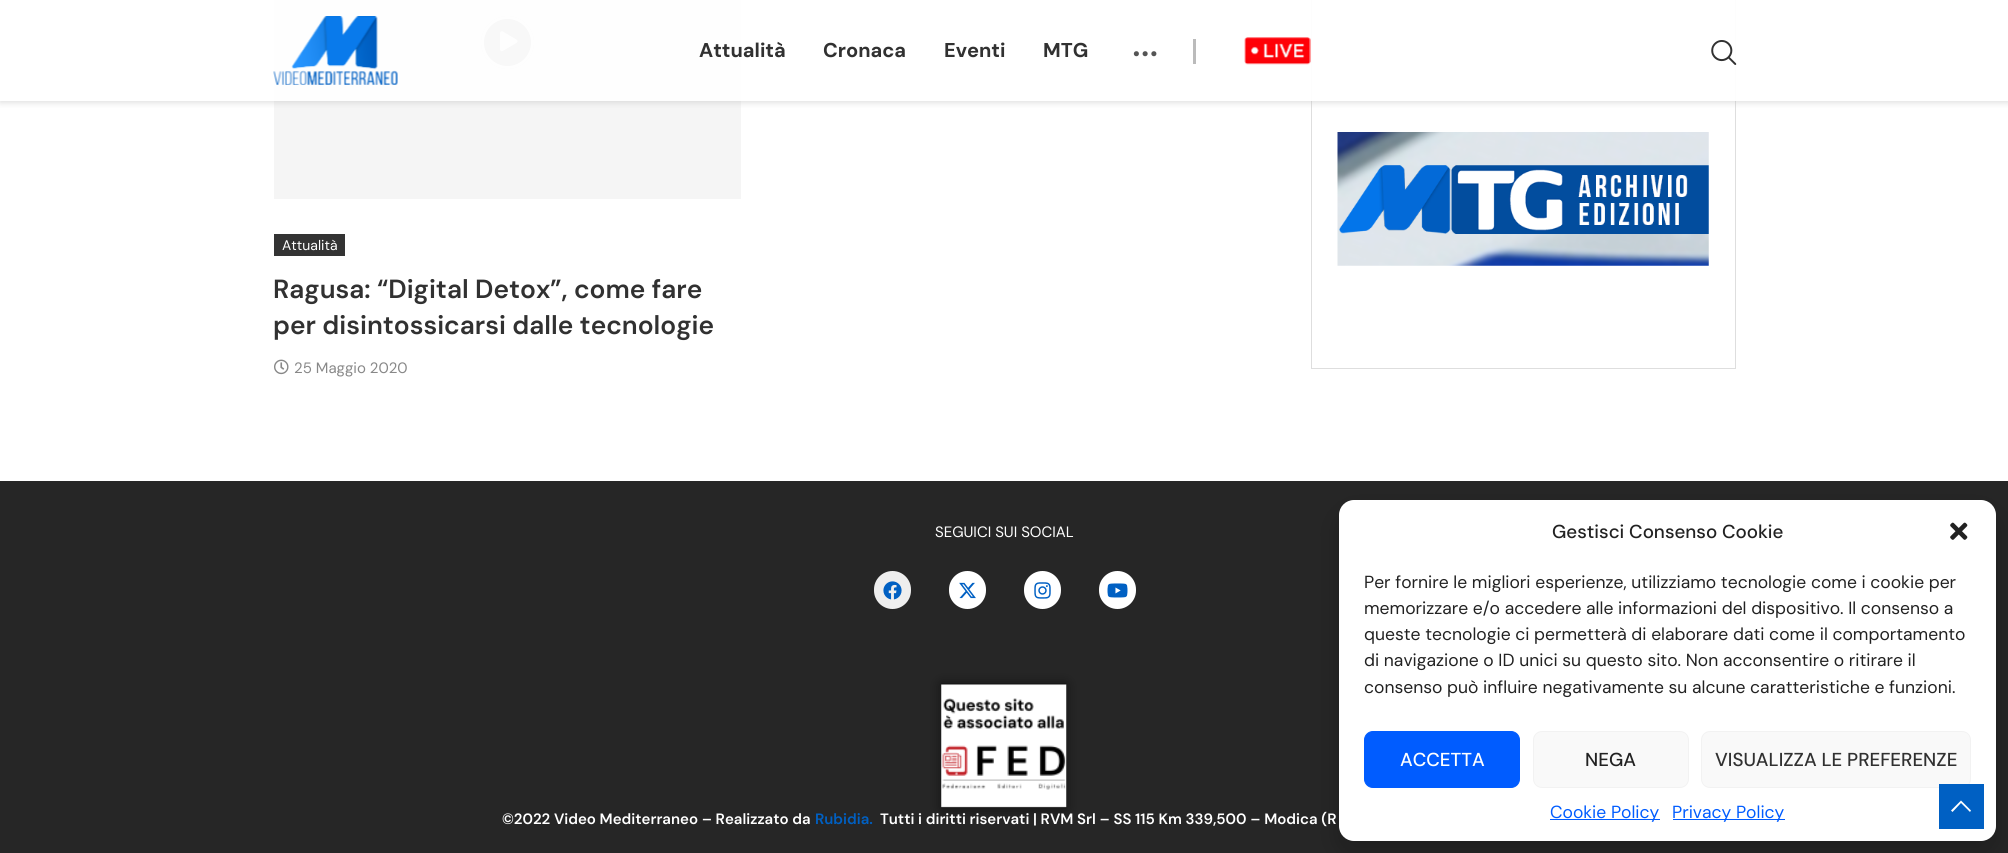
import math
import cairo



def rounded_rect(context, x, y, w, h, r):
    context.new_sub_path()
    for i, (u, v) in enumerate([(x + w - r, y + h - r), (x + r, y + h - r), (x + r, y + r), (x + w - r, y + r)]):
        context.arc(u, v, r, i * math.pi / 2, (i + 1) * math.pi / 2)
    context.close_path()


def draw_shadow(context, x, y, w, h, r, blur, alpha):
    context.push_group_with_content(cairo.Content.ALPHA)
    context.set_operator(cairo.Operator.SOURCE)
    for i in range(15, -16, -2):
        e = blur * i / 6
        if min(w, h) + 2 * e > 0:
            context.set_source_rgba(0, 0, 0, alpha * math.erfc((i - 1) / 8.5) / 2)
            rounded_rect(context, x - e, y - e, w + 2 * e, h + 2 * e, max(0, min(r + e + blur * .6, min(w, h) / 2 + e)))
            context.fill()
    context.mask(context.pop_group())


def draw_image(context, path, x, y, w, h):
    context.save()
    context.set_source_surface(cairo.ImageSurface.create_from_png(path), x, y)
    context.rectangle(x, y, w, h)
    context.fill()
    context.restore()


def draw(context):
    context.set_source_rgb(1, 1, 1)
    context.paint()
    context.set_source_rgb(245 / 255, 245 / 255, 245 / 255)
    context.rectangle(274, 0, 467, 199)
    context.fill()
    context.set_source_rgb(147 / 255, 147 / 255, 147 / 255)
    context.arc(507.5, 42.5, 26.5, 0, 2 * math.pi)
    context.fill()
    context.arc(507.5, 42.5, 25, 0, 2 * math.pi)
    context.set_source_rgba(1, 1, 1, 0.9)
    context.set_line_width(3)
    context.stroke()
    draw_image(context, "images/4.png", 500, 31, 18, 21)
    context.rectangle(1311.5, -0.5, 424, 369)
    context.set_source_rgb(222 / 255, 222 / 255, 222 / 255)
    context.set_line_width(1)
    context.stroke()
    context.save()
    context.rectangle(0, 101, 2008, 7)
    context.clip()
    context.set_source_rgb(190 / 255, 190 / 255, 190 / 255)
    draw_shadow(context, 0, 1, 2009, 102, 0, 3, 0.46)
    context.restore()
    context.set_source_rgba(1, 1, 1, 0.93)
    context.rectangle(274, 0, 1462, 101)
    context.fill()
    draw_image(context, "images/1.png", 273, 16, 125, 69)
    context.set_source_rgb(187 / 255, 187 / 255, 187 / 255)
    context.rectangle(1193, 39, 3, 25)
    context.fill()
    draw_image(context, "images/2.png", 1244, 37, 67, 28)
    draw_image(context, "images/3.png", 1711, 40, 26, 25)
    context.set_source_rgb(51 / 255, 51 / 255, 51 / 255)
    context.rectangle(274, 234, 71, 22)
    context.fill()
    draw_image(context, "images/5.png", 274, 359, 15, 16)
    draw_image(context, "images/6.png", 1337, 132, 372, 134)
    context.set_source_rgb(38 / 255, 38 / 255, 38 / 255)
    context.rectangle(0, 481, 2008, 372)
    context.fill()
    context.set_source_rgb(238 / 255, 238 / 255, 238 / 255)
    rounded_rect(context, 874, 571, 37, 38, 18.5)
    context.fill()
    draw_image(context, "images/7.png", 883, 581, 19, 19)
    context.set_source_rgb(1, 1, 1)
    rounded_rect(context, 949, 571, 37, 38, 18.5)
    context.fill()
    draw_image(context, "images/8.png", 959, 582, 17, 17)
    rounded_rect(context, 1024, 571, 37, 38, 18.5)
    context.fill()
    draw_image(context, "images/9.png", 1034, 582, 17, 17)
    rounded_rect(context, 1099, 571, 37, 38, 18.5)
    context.fill()
    draw_image(context, "images/10.png", 1107, 583, 21, 15)
    context.set_source_rgb(0, 0, 0)
    draw_shadow(context, 941, 684, 125, 125, 0, 6, 0.5)
    draw_image(context, "images/11.png", 941, 683, 126, 126)
    draw_shadow(context, 1339, 513, 657, 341, 15, 12.5, 0.19)
    context.set_source_rgb(1, 1, 1)
    rounded_rect(context, 1339, 500, 657, 341, 15)
    context.fill()
    draw_image(context, "images/12.png", 1950, 522, 18, 18)
    context.set_source_rgb(0, 92 / 255, 1)
    rounded_rect(context, 1364.5, 731.5, 155, 56, 8.5)
    context.fill_preserve()
    context.stroke()
    context.set_source_rgb(249 / 255, 249 / 255, 249 / 255)
    rounded_rect(context, 1533.5, 731.5, 155, 56, 8.5)
    context.fill_preserve()
    context.set_source_rgb(242 / 255, 242 / 255, 242 / 255)
    context.stroke()
    context.set_source_rgb(249 / 255, 249 / 255, 249 / 255)
    rounded_rect(context, 1701.5, 731.5, 269, 56, 8.5)
    context.fill_preserve()
    context.set_source_rgb(242 / 255, 242 / 255, 242 / 255)
    context.stroke()
    context.set_source_rgb(0, 92 / 255, 1)
    context.rectangle(1550, 819, 110, 1)
    context.fill()
    context.rectangle(1673, 819, 112, 1)
    context.fill()
    context.set_source_rgb(0, 96 / 255, 195 / 255)
    context.rectangle(1939, 784, 45, 45)
    context.fill()
    context.set_source_rgb(1, 1, 1)
    context.new_path()
    context.move_to(1961, 800.5)
    context.line_to(1951, 810.5)
    context.line_to(1952.5, 812)
    context.line_to(1961, 803)
    context.line_to(1970, 812)
    context.line_to(1971, 810.5)
    context.close_path()
    context.fill()
    context.select_font_face("DM Sans", cairo.FontSlant.NORMAL, cairo.FontWeight.BOLD)
    context.set_font_size(20)
    context.set_source_rgb(49 / 255, 49 / 255, 49 / 255)
    context.move_to(699, 57)
    context.show_text("Attualità")
    context.move_to(823, 57)
    context.show_text("Cronaca")
    context.move_to(944, 57)
    context.show_text("Eventi")
    context.move_to(1043, 57)
    context.show_text("MTG")
    context.select_font_face("DM Sans")
    context.set_font_size(44)
    context.set_source_rgb(85 / 255, 85 / 255, 85 / 255)
    context.move_to(1132, 56)
    context.show_text("...")
    context.set_font_size(14)
    context.set_source_rgb(1, 1, 1)
    context.move_to(282, 250)
    context.show_text("Attualità")
    context.select_font_face("DM Sans SemiBold")
    context.set_font_size(26.25)
    context.set_source_rgb(49 / 255, 49 / 255, 49 / 255)
    context.move_to(273, 298)
    context.show_text("Ragusa: “Digital Detox”, come fare")
    context.move_to(273, 334)
    context.show_text("per disintossicarsi dalle tecnologie")
    context.select_font_face("DM Sans")
    context.set_font_size(15)
    context.set_source_rgb(136 / 255, 136 / 255, 136 / 255)
    context.move_to(294, 373)
    context.show_text("25 Maggio 2020")
    context.set_source_rgb(1, 1, 1)
    context.move_to(935, 537)
    context.show_text("SEGUICI SUI SOCIAL")
    context.select_font_face("DM Sans SemiBold")
    context.move_to(502, 824)
    context.show_text("©2022 Video Mediterraneo – Realizzato da")
    context.set_source_rgb(0, 96 / 255, 195 / 255)
    context.move_to(815, 824)
    context.show_text("Rubidia.")
    context.set_source_rgb(1, 1, 1)
    context.move_to(880, 824)
    context.show_text("Tutti i diritti riservati | RVM Srl – SS 115 Km 339,500 – Modica (R")
    context.select_font_face("DM Sans Medium")
    context.set_font_size(18.75)
    context.set_source_rgb(34 / 255, 34 / 255, 34 / 255)
    context.move_to(1552, 538)
    context.show_text("Gestisci Consenso Cookie")
    context.select_font_face("DM Sans")
    context.set_font_size(17.5)
    context.move_to(1364, 588)
    context.show_text("Per fornire le migliori esperienze, utilizziamo tecnologie come i cookie per")
    context.move_to(1364, 614)
    context.show_text("memorizzare e/o accedere alle informazioni del dispositivo. Il consenso a")
    context.move_to(1364, 640)
    context.show_text("queste tecnologie ci permetterà di elaborare dati come il comportamento")
    context.move_to(1364, 666)
    context.show_text("di navigazione o ID unici su questo sito. Non acconsentire o ritirare il")
    context.move_to(1364, 693)
    context.show_text("consenso può influire negativamente su alcune caratteristiche e funzioni.")
    context.select_font_face("DM Sans Medium")
    context.set_font_size(18.75)
    context.set_source_rgb(1, 1, 1)
    context.move_to(1400, 766)
    context.show_text("ACCETTA")
    context.set_source_rgb(34 / 255, 34 / 255, 34 / 255)
    context.move_to(1585, 766)
    context.show_text("NEGA")
    context.set_source_rgb(49 / 255, 49 / 255, 49 / 255)
    context.move_to(1715, 766)
    context.show_text("VISUALIZZA LE PREFERENZE")
    context.select_font_face("DM Sans")
    context.set_font_size(17.5)
    context.set_source_rgb(0, 92 / 255, 1)
    context.move_to(1550, 818)
    context.show_text("Cookie Policy")
    context.move_to(1672, 818)
    context.show_text("Privacy Policy")


surface = cairo.ImageSurface(cairo.Format.RGB24, 2008, 853)
context = cairo.Context(surface)
options = cairo.FontOptions()
options.set_hint_metrics(cairo.HintMetrics.OFF)
options.set_hint_style(cairo.HintStyle.NONE)
context.set_font_options(options)
context.set_miter_limit(4)
draw(context)
surface.write_to_png("out.png")
